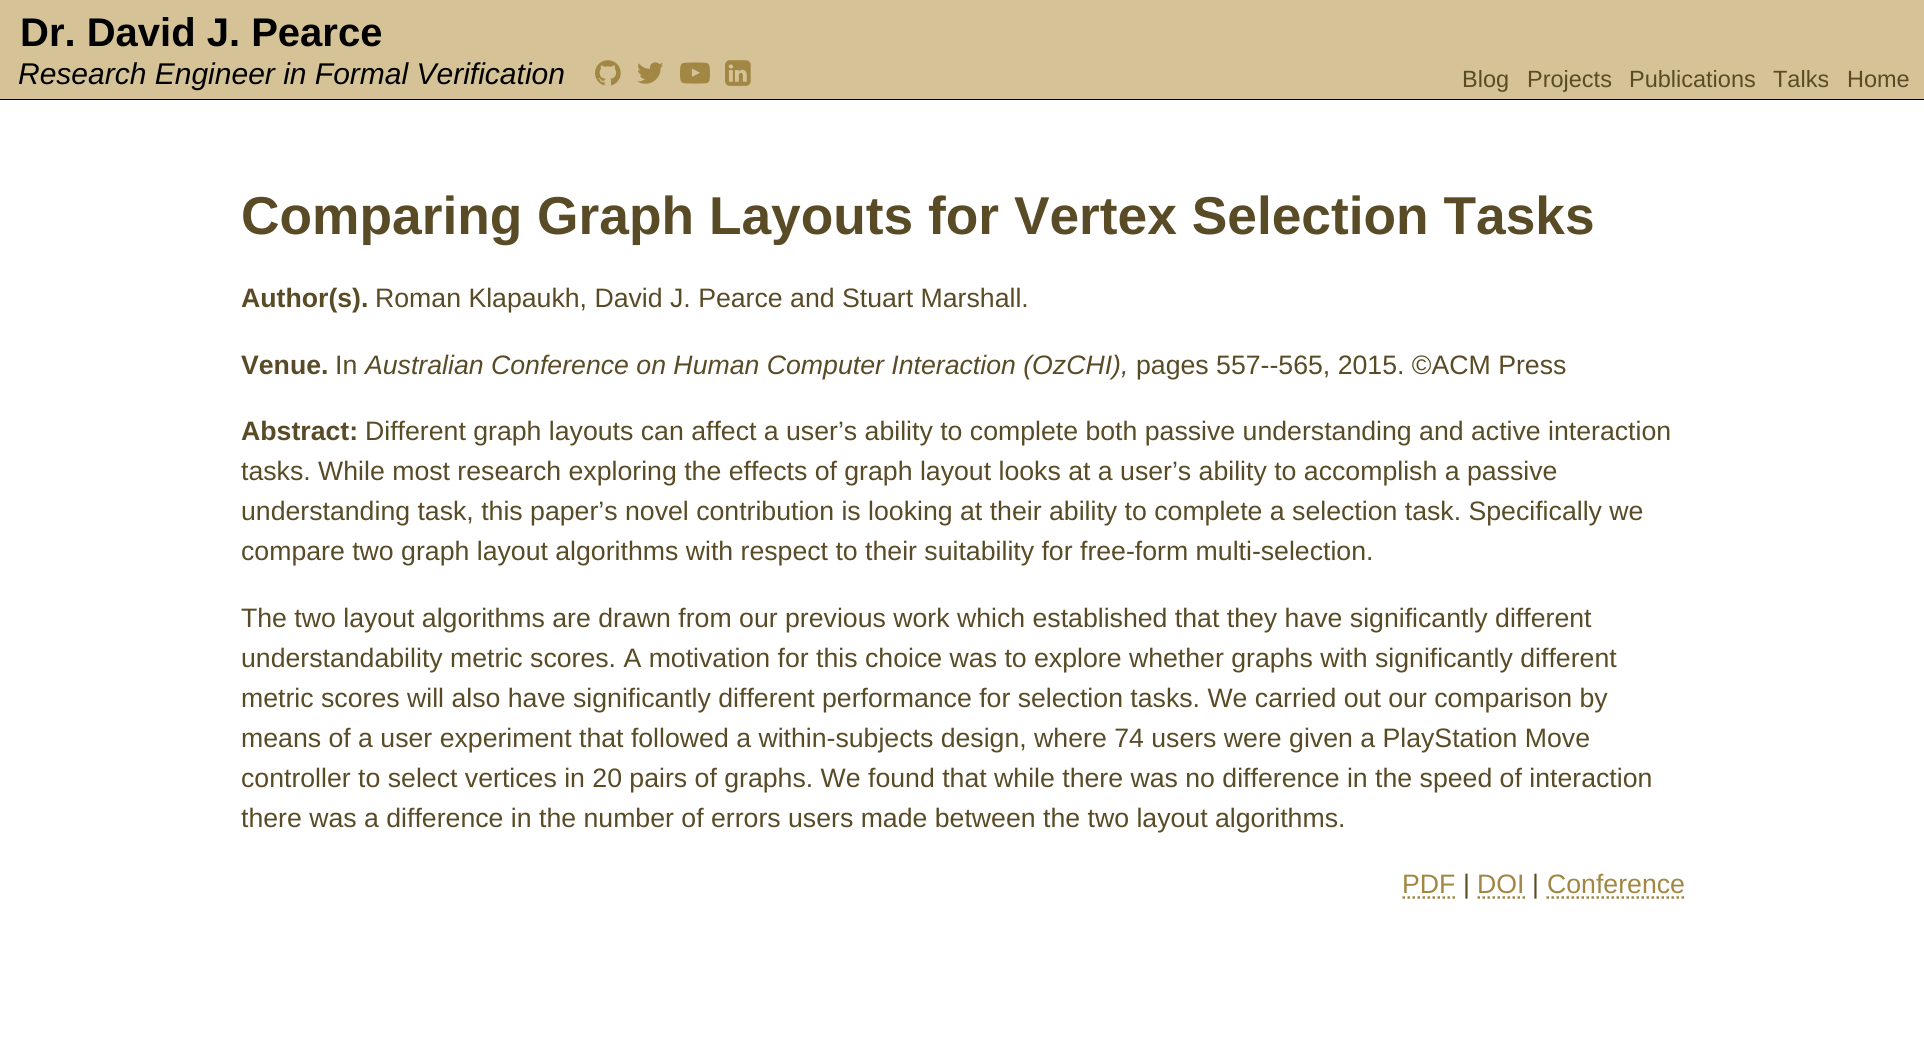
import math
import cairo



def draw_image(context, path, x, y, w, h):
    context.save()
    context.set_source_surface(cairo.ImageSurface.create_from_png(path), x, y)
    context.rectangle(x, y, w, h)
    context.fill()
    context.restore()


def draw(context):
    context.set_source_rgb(1, 1, 1)
    context.paint()
    context.set_source_rgb(213 / 255, 195 / 255, 151 / 255)
    context.rectangle(0, 0, 1924, 99)
    context.fill()
    context.set_source_rgb(0, 0, 0)
    context.rectangle(0, 99, 1924, 1)
    context.fill()
    draw_image(context, "images/1.png", 595, 60, 26, 26)
    draw_image(context, "images/2.png", 637, 62, 26, 22)
    draw_image(context, "images/3.png", 680, 62, 30, 22)
    draw_image(context, "images/4.png", 725, 60, 26, 26)
    context.new_path()
    context.move_to(1402.5, 897.5)
    context.line_to(1455.5, 897.5)
    context.set_source_rgb(162 / 255, 135 / 255, 68 / 255)
    context.set_line_width(2.5)
    context.set_dash([2.5, 2.5])
    context.stroke()
    context.new_path()
    context.move_to(1477.5, 897.5)
    context.line_to(1525, 897.5)
    context.stroke()
    context.new_path()
    context.move_to(1546.5, 897.5)
    context.line_to(1684.5, 897.5)
    context.stroke()
    context.select_font_face("Liberation Sans", cairo.FontSlant.NORMAL, cairo.FontWeight.BOLD)
    context.set_font_size(40)
    context.set_source_rgb(0, 0, 0)
    context.move_to(20, 46)
    context.show_text("Dr. David J. Pearce")
    context.select_font_face("Liberation Sans", cairo.FontSlant.ITALIC)
    context.set_font_size(30)
    context.move_to(18, 84)
    context.show_text("Research Engineer in Formal Verification")
    context.select_font_face("Liberation Sans")
    context.set_font_size(23.5)
    context.set_source_rgb(89 / 255, 75 / 255, 38 / 255)
    context.move_to(1462, 87)
    context.show_text("Blog")
    context.move_to(1527, 87)
    context.show_text("Projects")
    context.move_to(1629, 87)
    context.show_text("Publications")
    context.move_to(1773, 87)
    context.show_text("Talks")
    context.move_to(1847, 87)
    context.show_text("Home")
    context.select_font_face("Liberation Sans", cairo.FontSlant.NORMAL, cairo.FontWeight.BOLD)
    context.set_font_size(53.3)
    context.move_to(241, 234)
    context.show_text("Comparing Graph Layouts for Vertex Selection Tasks")
    context.set_font_size(26.67)
    context.move_to(241, 307)
    context.show_text("Author(s).")
    context.select_font_face("Liberation Sans")
    context.move_to(375, 307)
    context.show_text("Roman Klapaukh, David J. Pearce and Stuart Marshall.")
    context.select_font_face("Liberation Sans", cairo.FontSlant.NORMAL, cairo.FontWeight.BOLD)
    context.move_to(241, 374)
    context.show_text("Venue.")
    context.select_font_face("Liberation Sans")
    context.move_to(335, 374)
    context.show_text("In")
    context.select_font_face("Liberation Sans", cairo.FontSlant.ITALIC)
    context.move_to(365, 374)
    context.show_text("Australian Conference on Human Computer Interaction (OzCHI),")
    context.select_font_face("Liberation Sans")
    context.move_to(1136, 374)
    context.show_text("pages 557--565, 2015. ©ACM Press")
    context.select_font_face("Liberation Sans", cairo.FontSlant.NORMAL, cairo.FontWeight.BOLD)
    context.move_to(241, 440)
    context.show_text("Abstract:")
    context.select_font_face("Liberation Sans")
    context.move_to(365, 440)
    context.show_text("Different graph layouts can affect a user’s ability to complete both passive understanding and active interaction")
    context.move_to(241, 480)
    context.show_text("tasks. While most research exploring the effects of graph layout looks at a user’s ability to accomplish a passive")
    context.move_to(241, 520)
    context.show_text("understanding task, this paper’s novel contribution is looking at their ability to complete a selection task. Specifically we")
    context.move_to(241, 560)
    context.show_text("compare two graph layout algorithms with respect to their suitability for free-form multi-selection.")
    context.move_to(241, 627)
    context.show_text("The two layout algorithms are drawn from our previous work which established that they have significantly different")
    context.move_to(241, 667)
    context.show_text("understandability metric scores. A motivation for this choice was to explore whether graphs with significantly different")
    context.move_to(241, 707)
    context.show_text("metric scores will also have significantly different performance for selection tasks. We carried out our comparison by")
    context.move_to(241, 747)
    context.show_text("means of a user experiment that followed a within-subjects design, where 74 users were given a PlayStation Move")
    context.move_to(241, 787)
    context.show_text("controller to select vertices in 20 pairs of graphs. We found that while there was no difference in the speed of interaction")
    context.move_to(241, 827)
    context.show_text("there was a difference in the number of errors users made between the two layout algorithms.")
    context.set_source_rgb(162 / 255, 135 / 255, 68 / 255)
    context.move_to(1402, 893)
    context.show_text("PDF")
    context.set_source_rgb(89 / 255, 75 / 255, 38 / 255)
    context.move_to(1463, 893)
    context.show_text("|")
    context.set_source_rgb(162 / 255, 135 / 255, 68 / 255)
    context.move_to(1477, 893)
    context.show_text("DOI")
    context.set_source_rgb(89 / 255, 75 / 255, 38 / 255)
    context.move_to(1532, 893)
    context.show_text("|")
    context.set_source_rgb(162 / 255, 135 / 255, 68 / 255)
    context.move_to(1547, 893)
    context.show_text("Conference")


surface = cairo.ImageSurface(cairo.Format.RGB24, 1924, 1040)
context = cairo.Context(surface)
options = cairo.FontOptions()
options.set_hint_metrics(cairo.HintMetrics.OFF)
options.set_hint_style(cairo.HintStyle.NONE)
context.set_font_options(options)
context.set_miter_limit(4)
draw(context)
surface.write_to_png("out.png")
